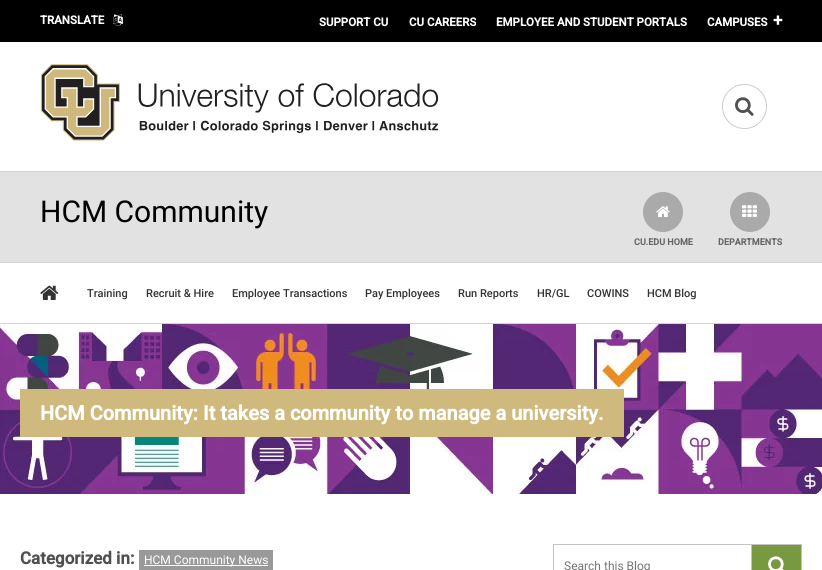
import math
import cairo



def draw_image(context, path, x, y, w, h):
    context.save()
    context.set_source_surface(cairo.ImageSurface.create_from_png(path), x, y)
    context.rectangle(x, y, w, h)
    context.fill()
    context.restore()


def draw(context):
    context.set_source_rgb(1, 1, 1)
    context.paint()
    context.set_source_rgb(0, 0, 0)
    context.rectangle(0, 0, 822, 42)
    context.fill()
    draw_image(context, "images/1.png", 113, 14, 10, 12)
    draw_image(context, "images/2.png", 40, 64, 399, 77)
    context.arc(744.5, 106.5, 22, 0, 2 * math.pi)
    context.set_source_rgb(204 / 255, 204 / 255, 204 / 255)
    context.set_line_width(1)
    context.stroke()
    draw_image(context, "images/3.png", 735, 97, 19, 19)
    context.set_source_rgb(226 / 255, 226 / 255, 226 / 255)
    context.rectangle(0, 172, 822, 90)
    context.fill()
    context.set_source_rgb(210 / 255, 210 / 255, 210 / 255)
    context.rectangle(0, 171, 822, 1)
    context.fill()
    context.set_source_rgb(170 / 255, 170 / 255, 170 / 255)
    context.arc(663, 212, 20, 0, 2 * math.pi)
    context.fill()
    draw_image(context, "images/4.png", 656, 206, 14, 11)
    context.arc(750, 212, 20, 0, 2 * math.pi)
    context.fill()
    draw_image(context, "images/5.png", 742, 205, 15, 12)
    context.set_source_rgb(210 / 255, 211 / 255, 212 / 255)
    context.rectangle(0, 262, 822, 1)
    context.fill()
    context.rectangle(0, 323, 822, 1)
    context.fill()
    draw_image(context, "images/6.png", 40, 285, 19, 15)
    draw_image(context, "images/7.png", 0, 324, 822, 170)
    context.set_source_rgb(207 / 255, 185 / 255, 125 / 255)
    context.rectangle(20, 389, 604, 48)
    context.fill()
    context.set_source_rgb(153 / 255, 153 / 255, 153 / 255)
    context.rectangle(139, 550, 134, 20)
    context.fill()
    context.set_source_rgb(1, 1, 1)
    context.rectangle(144, 565, 124, 1)
    context.fill()
    context.rectangle(553.5, 544.5, 198, 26)
    context.set_source_rgb(195 / 255, 195 / 255, 195 / 255)
    context.stroke()
    context.set_source_rgb(120 / 255, 153 / 255, 64 / 255)
    context.rectangle(752, 545, 49, 25)
    context.fill()
    draw_image(context, "images/8.png", 768, 556, 16, 14)
    context.set_source_rgb(195 / 255, 195 / 255, 195 / 255)
    context.rectangle(752, 544, 50, 1)
    context.fill()
    context.rectangle(801, 544, 1, 26)
    context.fill()
    context.select_font_face("Roboto", cairo.FontSlant.NORMAL, cairo.FontWeight.BOLD)
    context.set_font_size(11.5)
    context.set_source_rgb(1, 1, 1)
    context.move_to(40, 24)
    context.show_text("TRANSLATE")
    context.move_to(319, 26)
    context.show_text("SUPPORT CU")
    context.move_to(409, 26)
    context.show_text("CU CAREERS")
    context.move_to(496, 26)
    context.show_text("EMPLOYEE AND STUDENT PORTALS")
    context.move_to(707, 26)
    context.show_text("CAMPUSES")
    context.set_font_size(17)
    context.move_to(773, 26)
    context.show_text("+")
    context.select_font_face("Roboto")
    context.set_font_size(30)
    context.set_source_rgb(0, 0, 0)
    context.move_to(40, 222)
    context.show_text("HCM Community")
    context.select_font_face("Roboto", cairo.FontSlant.NORMAL, cairo.FontWeight.BOLD)
    context.set_font_size(9)
    context.set_source_rgb(102 / 255, 102 / 255, 102 / 255)
    context.move_to(634, 245)
    context.show_text("CU.EDU HOME")
    context.move_to(718, 245)
    context.show_text("DEPARTMENTS")
    context.select_font_face("Roboto Medium")
    context.set_font_size(11)
    context.set_source_rgb(51 / 255, 51 / 255, 51 / 255)
    context.move_to(87, 297)
    context.show_text("Training")
    context.move_to(146, 297)
    context.show_text("Recruit & Hire")
    context.move_to(232, 297)
    context.show_text("Employee Transactions")
    context.move_to(365, 297)
    context.show_text("Pay Employees")
    context.move_to(458, 297)
    context.show_text("Run Reports")
    context.move_to(537, 297)
    context.show_text("HR/GL")
    context.move_to(587, 297)
    context.show_text("COWINS")
    context.move_to(647, 297)
    context.show_text("HCM Blog")
    context.select_font_face("Roboto", cairo.FontSlant.NORMAL, cairo.FontWeight.BOLD)
    context.set_font_size(20)
    context.set_source_rgb(1, 1, 1)
    context.move_to(40, 420)
    context.show_text("HCM Community: It takes a community to manage a university.")
    context.set_font_size(17)
    context.set_source_rgb(80 / 255, 80 / 255, 80 / 255)
    context.move_to(20, 564)
    context.show_text("Categorized in:")
    context.select_font_face("Roboto")
    context.set_font_size(12)
    context.set_source_rgb(1, 1, 1)
    context.move_to(144, 564)
    context.show_text("HCM Community News")
    context.set_source_rgb(117 / 255, 117 / 255, 117 / 255)
    context.move_to(564, 570)
    context.show_text("Search this Blog")


surface = cairo.ImageSurface(cairo.Format.RGB24, 822, 570)
context = cairo.Context(surface)
options = cairo.FontOptions()
options.set_hint_metrics(cairo.HintMetrics.OFF)
options.set_hint_style(cairo.HintStyle.NONE)
context.set_font_options(options)
context.set_miter_limit(4)
draw(context)
surface.write_to_png("out.png")
